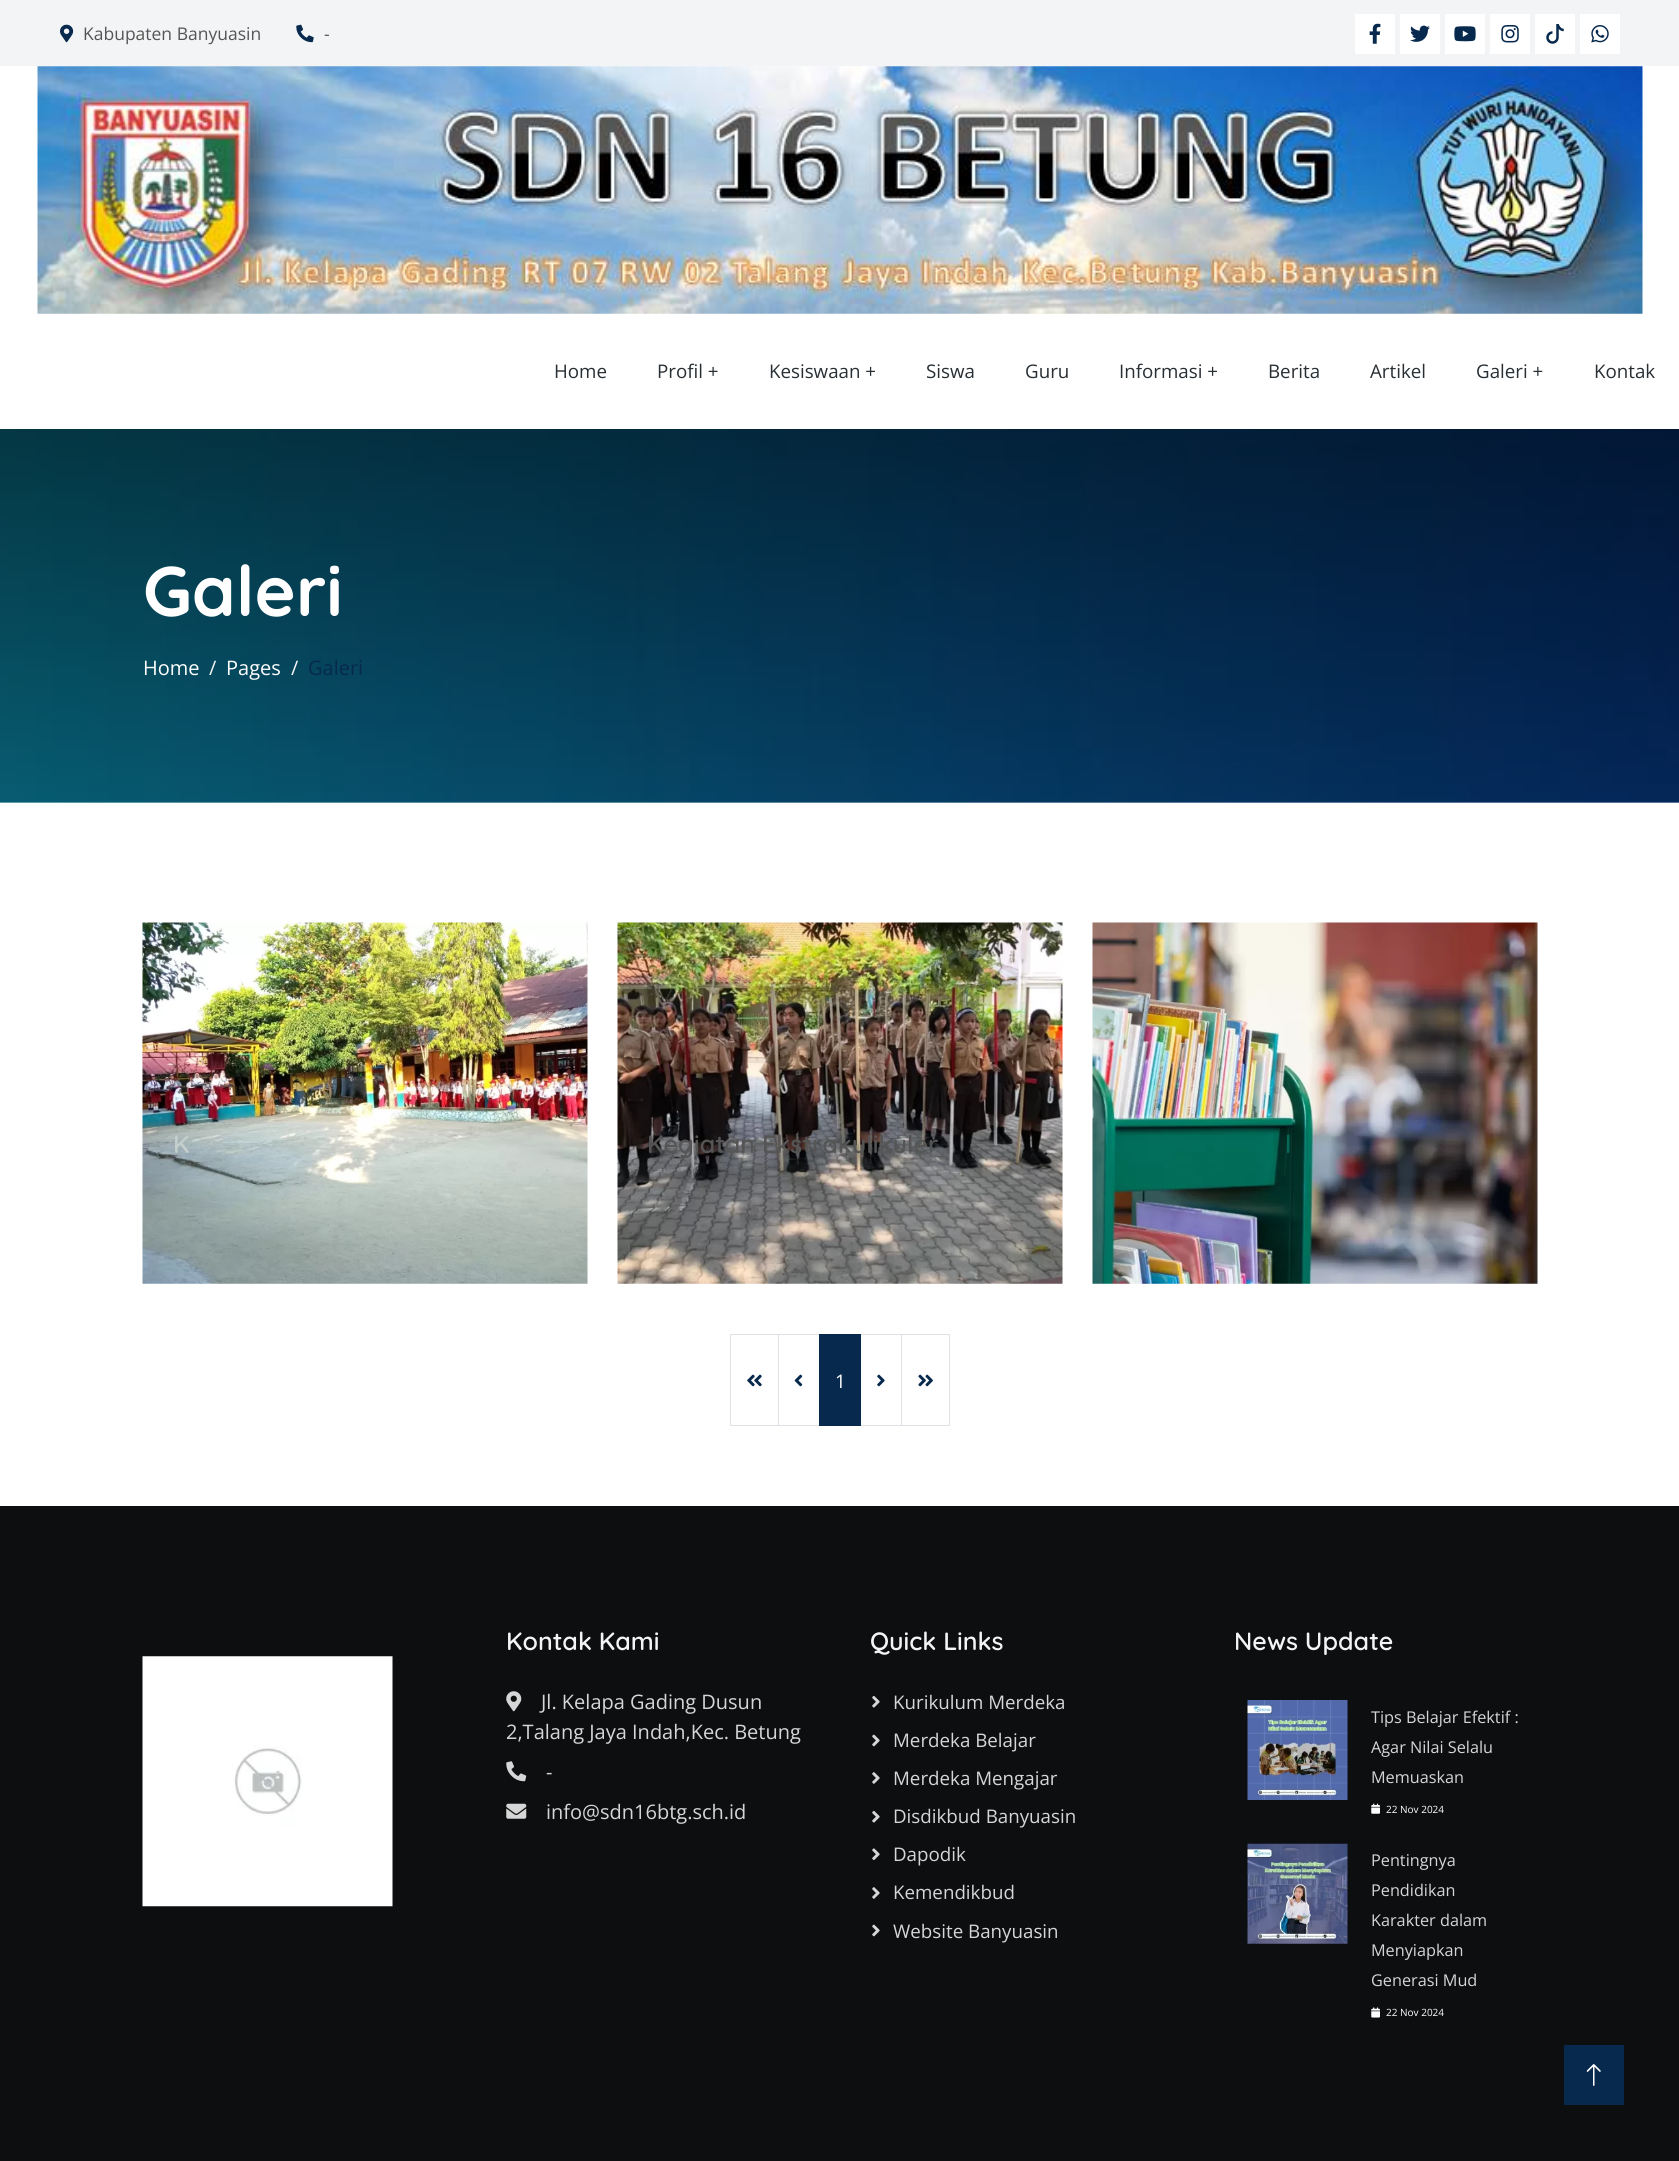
import math
import cairo



def draw_image(context, path, x, y, w, h):
    context.save()
    context.set_source_surface(cairo.ImageSurface.create_from_png(path), x, y)
    context.rectangle(x, y, w, h)
    context.fill()
    context.restore()


def draw(context):
    context.set_source_rgb(1, 1, 1)
    context.paint()
    context.set_source_rgb(243 / 255, 244 / 255, 245 / 255)
    context.rectangle(0, 0, 1679, 66)
    context.fill()
    draw_image(context, "images/1.png", 60, 24, 14, 19)
    draw_image(context, "images/2.png", 296, 24, 18, 19)
    context.set_source_rgb(1, 1, 1)
    context.rectangle(1355, 14, 40, 40)
    context.fill()
    draw_image(context, "images/3.png", 1369, 23, 12, 21)
    context.rectangle(1400, 14, 40, 40)
    context.fill()
    draw_image(context, "images/4.png", 1410, 25, 20, 17)
    context.rectangle(1445, 14, 40, 40)
    context.fill()
    draw_image(context, "images/5.png", 1454, 26, 22, 16)
    context.rectangle(1490, 14, 40, 40)
    context.fill()
    draw_image(context, "images/6.png", 1501, 25, 18, 18)
    context.rectangle(1535, 14, 40, 40)
    context.fill()
    draw_image(context, "images/7.png", 1546, 24, 18, 20)
    context.rectangle(1580, 14, 40, 40)
    context.fill()
    draw_image(context, "images/8.png", 1591, 25, 18, 18)
    draw_image(context, "images/9.png", 37, 66, 1606, 248)
    draw_image(context, "images/10.png", 0, 429, 1679, 374)
    draw_image(context, "images/11.png", 142, 922, 446, 362)
    draw_image(context, "images/12.png", 617, 922, 446, 362)
    draw_image(context, "images/13.png", 1092, 922, 446, 362)
    context.rectangle(730.5, 1334.5, 48, 91)
    context.set_source_rgb(222 / 255, 226 / 255, 230 / 255)
    context.set_line_width(1)
    context.stroke()
    draw_image(context, "images/14.png", 747, 1374, 15, 13)
    context.rectangle(778.5, 1334.5, 41, 91)
    context.stroke()
    draw_image(context, "images/15.png", 794, 1374, 9, 13)
    context.rectangle(860.5, 1334.5, 42, 91)
    context.stroke()
    context.set_source_rgb(7 / 255, 41 / 255, 77 / 255)
    context.rectangle(819, 1334, 42, 92)
    context.fill()
    draw_image(context, "images/16.png", 877, 1374, 8, 13)
    context.set_source_rgb(1, 1, 1)
    context.rectangle(902, 1335, 1, 90)
    context.fill()
    context.rectangle(901.5, 1334.5, 48, 91)
    context.set_source_rgb(222 / 255, 226 / 255, 230 / 255)
    context.stroke()
    draw_image(context, "images/17.png", 918, 1374, 15, 13)
    context.set_source_rgb(12 / 255, 14 / 255, 16 / 255)
    context.rectangle(0, 1506, 1679, 655)
    context.fill()
    draw_image(context, "images/18.png", 142, 1656, 251, 251)
    draw_image(context, "images/19.png", 506, 1691, 16, 21)
    draw_image(context, "images/20.png", 506, 1761, 21, 21)
    draw_image(context, "images/21.png", 506, 1803, 21, 16)
    draw_image(context, "images/22.png", 872, 1695, 8, 13)
    draw_image(context, "images/23.png", 872, 1734, 8, 13)
    draw_image(context, "images/24.png", 872, 1772, 8, 12)
    draw_image(context, "images/22.png", 872, 1810, 8, 13)
    draw_image(context, "images/25.png", 872, 1848, 8, 12)
    draw_image(context, "images/24.png", 872, 1887, 8, 12)
    draw_image(context, "images/23.png", 872, 1924, 8, 13)
    draw_image(context, "images/26.png", 1247, 1700, 101, 100)
    draw_image(context, "images/27.png", 1371, 1803, 9, 11)
    draw_image(context, "images/28.png", 1247, 1843, 101, 101)
    draw_image(context, "images/29.png", 1371, 2007, 9, 11)
    context.set_source_rgb(7 / 255, 41 / 255, 77 / 255)
    context.rectangle(1564, 2045, 60, 60)
    context.fill()
    draw_image(context, "images/30.png", 1586, 2064, 15, 22)
    context.select_font_face("Open Sans")
    context.set_font_size(17.5)
    context.set_source_rgb(85 / 255, 85 / 255, 85 / 255)
    context.move_to(83, 40)
    context.show_text("Kabupaten Banyuasin")
    context.move_to(324, 40)
    context.show_text("-")
    context.set_font_size(18.75)
    context.set_source_rgb(40 / 255, 47 / 255, 52 / 255)
    context.move_to(554, 378)
    context.show_text("Home")
    context.move_to(657, 378)
    context.show_text("Profil +")
    context.move_to(769, 378)
    context.show_text("Kesiswaan +")
    context.move_to(926, 378)
    context.show_text("Siswa")
    context.move_to(1025, 378)
    context.show_text("Guru")
    context.move_to(1119, 378)
    context.show_text("Informasi +")
    context.move_to(1268, 378)
    context.show_text("Berita")
    context.move_to(1370, 378)
    context.show_text("Artikel")
    context.move_to(1476, 378)
    context.show_text("Galeri +")
    context.move_to(1594, 378)
    context.show_text("Kontak")
    context.select_font_face("Quicksand", cairo.FontSlant.NORMAL, cairo.FontWeight.BOLD)
    context.set_font_size(70)
    context.set_source_rgb(1, 1, 1)
    context.move_to(143, 616)
    context.show_text("Galeri")
    context.select_font_face("Open Sans")
    context.set_font_size(20)
    context.move_to(143, 675)
    context.show_text("Home")
    context.set_source_rgb(243 / 255, 244 / 255, 245 / 255)
    context.move_to(209, 675)
    context.show_text("/")
    context.set_source_rgb(1, 1, 1)
    context.move_to(226, 675)
    context.show_text("Pages")
    context.set_source_rgb(243 / 255, 244 / 255, 245 / 255)
    context.move_to(291, 675)
    context.show_text("/")
    context.set_source_rgb(7 / 255, 41 / 255, 77 / 255)
    context.move_to(308, 675)
    context.show_text("Galeri")
    context.select_font_face("Quicksand SemiBold")
    context.set_font_size(25)
    context.set_source_rgb(196 / 255, 206 / 255, 203 / 255)
    context.move_to(173, 1153)
    context.show_text("K")
    context.set_source_rgb(85 / 255, 85 / 255, 85 / 255)
    context.move_to(647, 1153)
    context.show_text("Kegiatan Ekstrakulikuler")
    context.set_source_rgb(7 / 255, 104 / 255, 87 / 255)
    context.move_to(1285, 1153)
    context.show_text("l")
    context.select_font_face("Open Sans")
    context.set_font_size(18.75)
    context.set_source_rgb(1, 1, 1)
    context.move_to(835, 1388)
    context.show_text("1")
    context.select_font_face("Quicksand SemiBold")
    context.set_font_size(25)
    context.set_source_rgb(243 / 255, 244 / 255, 245 / 255)
    context.move_to(506, 1650)
    context.show_text("Kontak Kami")
    context.select_font_face("Open Sans")
    context.set_font_size(20)
    context.set_source_rgb(214 / 255, 214 / 255, 214 / 255)
    context.move_to(541, 1709)
    context.show_text("Jl. Kelapa Gading Dusun")
    context.move_to(506, 1739)
    context.show_text("2,Talang Jaya Indah,Kec. Betung")
    context.move_to(546, 1779)
    context.show_text("-")
    context.move_to(546, 1819)
    context.show_text("info@sdn16btg.sch.id")
    context.select_font_face("Quicksand SemiBold")
    context.set_font_size(25)
    context.set_source_rgb(243 / 255, 244 / 255, 245 / 255)
    context.move_to(870, 1650)
    context.show_text("Quick Links")
    context.select_font_face("Open Sans")
    context.set_font_size(18.75)
    context.set_source_rgb(214 / 255, 214 / 255, 214 / 255)
    context.move_to(893, 1709)
    context.show_text("Kurikulum Merdeka")
    context.move_to(893, 1747)
    context.show_text("Merdeka Belajar")
    context.move_to(893, 1785)
    context.show_text("Merdeka Mengajar")
    context.move_to(893, 1823)
    context.show_text("Disdikbud Banyuasin")
    context.move_to(893, 1861)
    context.show_text("Dapodik")
    context.move_to(893, 1899)
    context.show_text("Kemendikbud")
    context.move_to(893, 1938)
    context.show_text("Website Banyuasin")
    context.select_font_face("Quicksand SemiBold")
    context.set_font_size(25)
    context.set_source_rgb(243 / 255, 244 / 255, 245 / 255)
    context.move_to(1234, 1650)
    context.show_text("News Update")
    context.select_font_face("Open Sans")
    context.set_font_size(16.25)
    context.set_source_rgb(214 / 255, 214 / 255, 214 / 255)
    context.move_to(1371, 1723)
    context.show_text("Tips Belajar Efektif :")
    context.move_to(1371, 1753)
    context.show_text("Agar Nilai Selalu")
    context.move_to(1371, 1783)
    context.show_text("Memuaskan")
    context.set_font_size(10)
    context.set_source_rgb(1, 1, 1)
    context.move_to(1386, 1813)
    context.show_text("22 Nov 2024")
    context.set_font_size(16.25)
    context.set_source_rgb(214 / 255, 214 / 255, 214 / 255)
    context.move_to(1371, 1866)
    context.show_text("Pentingnya")
    context.move_to(1371, 1896)
    context.show_text("Pendidikan")
    context.move_to(1371, 1926)
    context.show_text("Karakter dalam")
    context.move_to(1371, 1956)
    context.show_text("Menyiapkan")
    context.move_to(1371, 1986)
    context.show_text("Generasi Mud")
    context.set_font_size(10)
    context.set_source_rgb(1, 1, 1)
    context.move_to(1386, 2016)
    context.show_text("22 Nov 2024")


surface = cairo.ImageSurface(cairo.Format.RGB24, 1679, 2161)
context = cairo.Context(surface)
options = cairo.FontOptions()
options.set_hint_metrics(cairo.HintMetrics.OFF)
options.set_hint_style(cairo.HintStyle.NONE)
context.set_font_options(options)
context.set_miter_limit(4)
draw(context)
surface.write_to_png("out.png")
